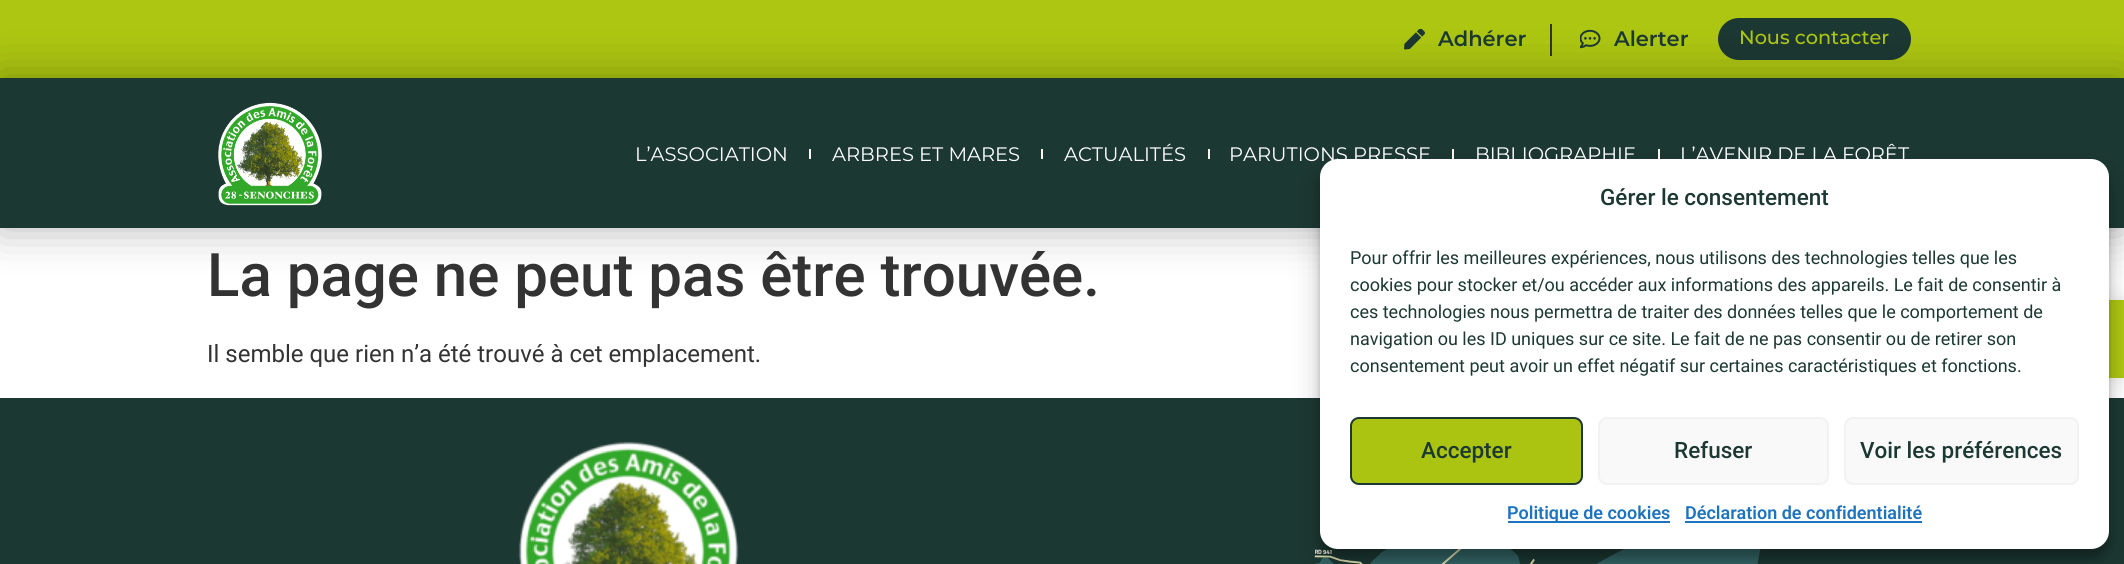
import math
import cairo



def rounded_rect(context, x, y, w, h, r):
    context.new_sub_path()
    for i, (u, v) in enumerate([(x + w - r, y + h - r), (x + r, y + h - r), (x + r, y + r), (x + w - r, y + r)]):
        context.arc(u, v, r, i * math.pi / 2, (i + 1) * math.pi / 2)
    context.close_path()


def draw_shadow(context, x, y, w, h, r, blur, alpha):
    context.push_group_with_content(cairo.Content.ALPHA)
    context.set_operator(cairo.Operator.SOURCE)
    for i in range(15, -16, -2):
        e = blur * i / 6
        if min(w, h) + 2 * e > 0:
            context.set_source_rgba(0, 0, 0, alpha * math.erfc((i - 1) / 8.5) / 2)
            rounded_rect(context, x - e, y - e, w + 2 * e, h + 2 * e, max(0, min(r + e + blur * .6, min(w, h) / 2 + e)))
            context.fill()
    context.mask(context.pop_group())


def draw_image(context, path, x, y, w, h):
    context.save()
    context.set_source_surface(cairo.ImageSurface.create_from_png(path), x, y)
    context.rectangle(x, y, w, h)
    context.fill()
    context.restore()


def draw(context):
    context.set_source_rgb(1, 1, 1)
    context.paint()
    context.set_source_rgb(172 / 255, 198 / 255, 17 / 255)
    context.rectangle(0, 0, 2124, 78)
    context.fill()
    context.set_source_rgb(51 / 255, 51 / 255, 51 / 255)
    context.rectangle(1550, 24, 2, 32)
    context.fill()
    draw_image(context, "images/1.png", 1404, 29, 21, 21)
    draw_image(context, "images/2.png", 1580, 29, 21, 20)
    context.set_source_rgb(28 / 255, 56 / 255, 50 / 255)
    rounded_rect(context, 1718, 18, 193, 42, 21)
    context.fill()
    context.set_source_rgb(0, 0, 0)
    draw_shadow(context, 0, 78, 2124, 150, 0, 22.5, 0.3)
    context.set_source_rgb(28 / 255, 56 / 255, 50 / 255)
    context.rectangle(0, 78, 2124, 150)
    context.fill()
    draw_image(context, "images/3.png", 218, 102, 104, 104)
    context.set_source_rgb(253 / 255, 249 / 255, 240 / 255)
    context.rectangle(809, 149, 2, 10)
    context.fill()
    context.rectangle(1041, 149, 2, 10)
    context.fill()
    context.rectangle(1208, 149, 2, 10)
    context.fill()
    context.rectangle(1452, 149, 2, 10)
    context.fill()
    context.rectangle(1658, 149, 2, 10)
    context.fill()
    context.set_source_rgb(28 / 255, 56 / 255, 50 / 255)
    context.rectangle(0, 398, 2124, 166)
    context.fill()
    context.set_source_rgb(0, 0, 0)
    draw_shadow(context, 2046, 300, 78, 78, 0, 7.5, 0.1)
    context.set_source_rgb(172 / 255, 198 / 255, 17 / 255)
    context.rectangle(2109, 300, 15, 78)
    context.fill()
    draw_image(context, "images/5.png", 1314, 549, 447, 15)
    context.set_source_rgb(0, 0, 0)
    draw_shadow(context, 1320, 168, 789, 390, 18, 4.5, 0.23)
    draw_shadow(context, 1320, 174, 789, 390, 18, 15, 0.19)
    context.set_source_rgb(1, 1, 1)
    rounded_rect(context, 1320, 159, 789, 390, 18)
    context.fill()
    context.set_source_rgb(170 / 255, 196 / 255, 17 / 255)
    rounded_rect(context, 1351, 418, 231, 66, 8)
    context.fill_preserve()
    context.set_source_rgb(28 / 255, 56 / 255, 50 / 255)
    context.stroke()
    context.set_source_rgb(249 / 255, 249 / 255, 249 / 255)
    rounded_rect(context, 1599, 418, 229, 66, 8)
    context.fill_preserve()
    context.set_source_rgb(242 / 255, 242 / 255, 242 / 255)
    context.stroke()
    context.set_source_rgb(249 / 255, 249 / 255, 249 / 255)
    rounded_rect(context, 1845, 418, 233, 66, 8)
    context.fill_preserve()
    context.set_source_rgb(242 / 255, 242 / 255, 242 / 255)
    context.stroke()
    context.set_source_rgb(30 / 255, 115 / 255, 190 / 255)
    context.rectangle(1508, 521, 162, 2)
    context.fill()
    context.rectangle(1685, 521, 237, 2)
    context.fill()
    draw_image(context, "images/4.png", 518, 441, 221, 123)
    context.select_font_face("Montserrat SemiBold")
    context.set_font_size(21)
    context.set_source_rgb(28 / 255, 56 / 255, 50 / 255)
    context.move_to(1438, 46)
    context.show_text("Adhérer")
    context.move_to(1614, 46)
    context.show_text("Alerter")
    context.select_font_face("Montserrat Medium")
    context.set_font_size(19.25)
    context.set_source_rgb(172 / 255, 198 / 255, 17 / 255)
    context.move_to(1739, 44)
    context.show_text("Nous contacter")
    context.select_font_face("Montserrat")
    context.set_font_size(19.5)
    context.set_source_rgb(1, 1, 1)
    context.move_to(635, 161)
    context.show_text("L’ASSOCIATION")
    context.move_to(832, 161)
    context.show_text("ARBRES ET MARES")
    context.move_to(1064, 161)
    context.show_text("ACTUALITÉS")
    context.move_to(1229, 161)
    context.show_text("PARUTIONS PRESSE")
    context.move_to(1475, 161)
    context.show_text("BIBLIOGRAPHIE")
    context.move_to(1680, 161)
    context.show_text("L’AVENIR DE LA FORÊT")
    context.select_font_face("Roboto Medium")
    context.set_font_size(60)
    context.set_source_rgb(51 / 255, 51 / 255, 51 / 255)
    context.move_to(207, 296)
    context.show_text("La page ne peut pas être trouvée.")
    context.select_font_face("Roboto")
    context.set_font_size(24)
    context.move_to(207, 362)
    context.show_text("Il semble que rien n’a été trouvé à cet emplacement.")
    context.select_font_face("Roboto Medium")
    context.set_font_size(22.5)
    context.set_source_rgb(28 / 255, 56 / 255, 50 / 255)
    context.move_to(1600, 205)
    context.show_text("Gérer le consentement")
    context.select_font_face("Roboto")
    context.set_font_size(18)
    context.move_to(1350, 264)
    context.show_text("Pour offrir les meilleures expériences, nous utilisons des technologies telles que les")
    context.move_to(1350, 291)
    context.show_text("cookies pour stocker et/ou accéder aux informations des appareils. Le fait de consentir à")
    context.move_to(1350, 318)
    context.show_text("ces technologies nous permettra de traiter des données telles que le comportement de")
    context.move_to(1350, 345)
    context.show_text("navigation ou les ID uniques sur ce site. Le fait de ne pas consentir ou de retirer son")
    context.move_to(1350, 372)
    context.show_text("consentement peut avoir un effet négatif sur certaines caractéristiques et fonctions.")
    context.select_font_face("Roboto Medium")
    context.set_font_size(22.5)
    context.move_to(1421, 458)
    context.show_text("Accepter")
    context.move_to(1674, 458)
    context.show_text("Refuser")
    context.move_to(1860, 458)
    context.show_text("Voir les préférences")
    context.select_font_face("Roboto SemiBold")
    context.set_font_size(18)
    context.set_source_rgb(30 / 255, 115 / 255, 190 / 255)
    context.move_to(1507, 519)
    context.show_text("Politique de cookies")
    context.move_to(1685, 519)
    context.show_text("Déclaration de confidentialité")


surface = cairo.ImageSurface(cairo.Format.RGB24, 2124, 564)
context = cairo.Context(surface)
options = cairo.FontOptions()
options.set_hint_metrics(cairo.HintMetrics.OFF)
options.set_hint_style(cairo.HintStyle.NONE)
context.set_font_options(options)
context.set_miter_limit(4)
draw(context)
surface.write_to_png("out.png")
